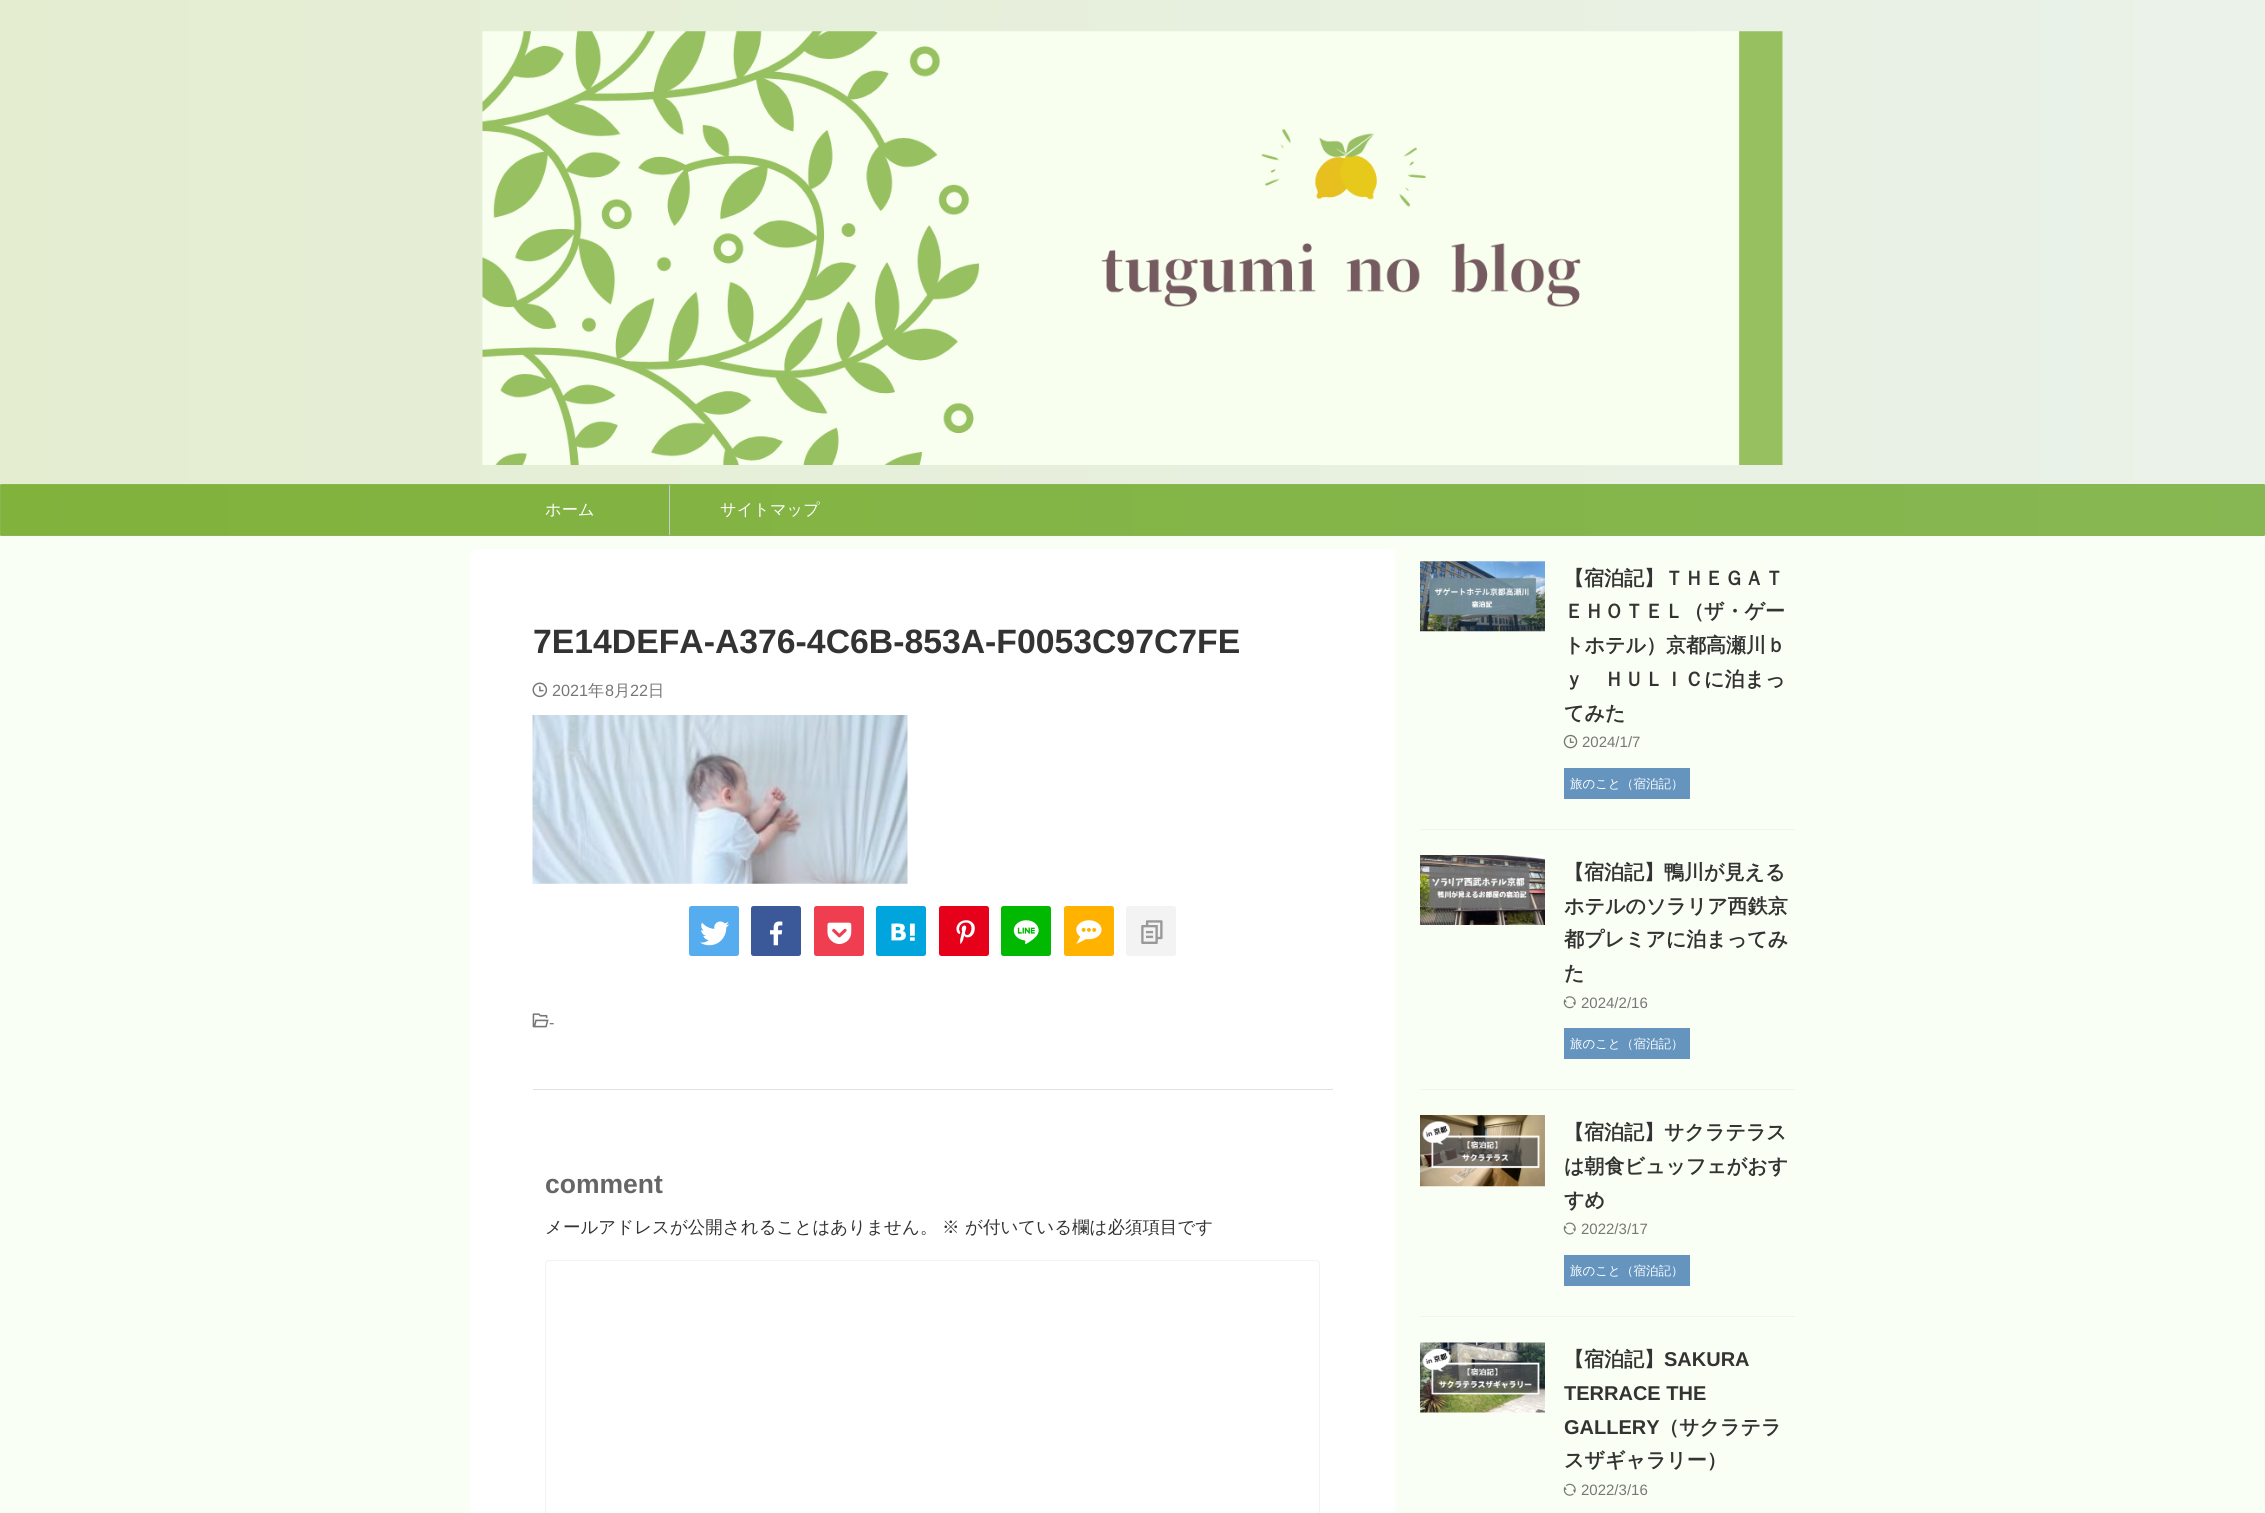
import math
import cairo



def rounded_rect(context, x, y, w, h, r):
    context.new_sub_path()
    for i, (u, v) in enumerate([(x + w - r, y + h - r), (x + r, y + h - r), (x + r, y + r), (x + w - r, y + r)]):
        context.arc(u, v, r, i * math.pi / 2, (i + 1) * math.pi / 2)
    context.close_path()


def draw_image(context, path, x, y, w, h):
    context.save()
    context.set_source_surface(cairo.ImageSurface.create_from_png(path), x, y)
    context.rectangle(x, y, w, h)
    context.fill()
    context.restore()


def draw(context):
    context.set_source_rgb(249 / 255, 1, 244 / 255)
    context.paint()
    gradient = cairo.LinearGradient(2265, 242, 0, 242)
    gradient.add_color_stop_rgba(0, 234 / 255, 242 / 255, 234 / 255, 1)
    gradient.add_color_stop_rgba(1, 228 / 255, 237 / 255, 208 / 255, 1)
    context.set_source(gradient)
    context.rectangle(0, 0, 2265, 484)
    context.fill()
    draw_image(context, "images/1.png", 482, 31, 1301, 434)
    gradient = cairo.LinearGradient(2264, 510, 1.2, 510)
    gradient.add_color_stop_rgba(0, 134 / 255, 183 / 255, 82 / 255, 1)
    gradient.add_color_stop_rgba(1, 129 / 255, 178 / 255, 60 / 255, 1)
    context.set_source(gradient)
    context.rectangle(1, 485, 2263, 50)
    context.fill()
    rounded_rect(context, 0.5, 484.5, 2264, 51, 0.5)
    context.set_source_rgb(134 / 255, 183 / 255, 82 / 255)
    context.set_line_width(1)
    context.stroke()
    context.set_source_rgb(199 / 255, 203 / 255, 210 / 255)
    context.rectangle(669, 485, 1, 50)
    context.fill()
    context.set_source_rgb(1, 1, 1)
    rounded_rect(context, 470, 549, 925, 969, 5)
    context.fill()
    draw_image(context, "images/2.png", 532, 682, 16, 16)
    draw_image(context, "images/3.png", 532, 715, 376, 169)
    context.set_source_rgb(85 / 255, 172 / 255, 238 / 255)
    rounded_rect(context, 689, 906, 50, 50, 2.5)
    context.fill()
    draw_image(context, "images/4.png", 700, 921, 30, 25)
    context.set_source_rgb(59 / 255, 89 / 255, 152 / 255)
    rounded_rect(context, 751, 906, 50, 50, 2.5)
    context.fill()
    draw_image(context, "images/5.png", 770, 921, 13, 25)
    context.set_source_rgb(240 / 255, 62 / 255, 81 / 255)
    rounded_rect(context, 814, 906, 50, 50, 2.5)
    context.fill()
    draw_image(context, "images/6.png", 827, 922, 25, 22)
    context.set_source_rgb(0, 165 / 255, 222 / 255)
    rounded_rect(context, 876, 906, 50, 50, 2.5)
    context.fill()
    draw_image(context, "images/7.png", 891, 923, 24, 18)
    context.set_source_rgb(231 / 255, 0, 26 / 255)
    rounded_rect(context, 939, 906, 50, 50, 2.5)
    context.fill()
    draw_image(context, "images/8.png", 956, 920, 19, 24)
    context.set_source_rgb(0, 185 / 255, 0)
    rounded_rect(context, 1001, 906, 50, 50, 2.5)
    context.fill()
    draw_image(context, "images/9.png", 1013, 920, 26, 24)
    context.set_source_rgb(1, 179 / 255, 0)
    rounded_rect(context, 1064, 906, 50, 50, 2.5)
    context.fill()
    draw_image(context, "images/10.png", 1076, 920, 26, 24)
    context.set_source_rgb(243 / 255, 243 / 255, 243 / 255)
    rounded_rect(context, 1126, 906, 50, 50, 2.5)
    context.fill()
    draw_image(context, "images/11.png", 1141, 920, 22, 24)
    draw_image(context, "images/12.png", 532, 1013, 17, 15)
    context.set_source_rgb(224 / 255, 224 / 255, 224 / 255)
    context.rectangle(533, 1089, 800, 1)
    context.fill()
    rounded_rect(context, 545.5, 1260.5, 774, 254, 3.5)
    context.set_source_rgb(242 / 255, 242 / 255, 242 / 255)
    context.stroke()
    context.set_source_rgb(243 / 255, 243 / 255, 243 / 255)
    context.rectangle(1420, 829, 375, 1)
    context.fill()
    draw_image(context, "images/13.png", 1420, 561, 125, 71)
    draw_image(context, "images/14.png", 1563, 734, 15, 15)
    context.set_source_rgb(101 / 255, 149 / 255, 191 / 255)
    context.rectangle(1564, 768, 126, 31)
    context.fill()
    context.set_source_rgb(243 / 255, 243 / 255, 243 / 255)
    context.rectangle(1420, 1089, 375, 1)
    context.fill()
    draw_image(context, "images/15.png", 1420, 855, 125, 70)
    draw_image(context, "images/16.png", 1563, 996, 13, 13)
    context.set_source_rgb(101 / 255, 149 / 255, 191 / 255)
    context.rectangle(1564, 1028, 126, 31)
    context.fill()
    context.set_source_rgb(243 / 255, 243 / 255, 243 / 255)
    context.rectangle(1420, 1316, 375, 1)
    context.fill()
    draw_image(context, "images/17.png", 1420, 1115, 125, 72)
    draw_image(context, "images/18.png", 1563, 1222, 13, 13)
    context.set_source_rgb(101 / 255, 149 / 255, 191 / 255)
    context.rectangle(1564, 1255, 126, 31)
    context.fill()
    draw_image(context, "images/19.png", 1420, 1342, 125, 71)
    draw_image(context, "images/20.png", 1563, 1483, 13, 13)
    context.select_font_face("WenQuanYi Zen Hei Medium")
    context.set_font_size(16.25)
    context.set_source_rgb(1, 1, 1)
    context.move_to(545, 515)
    context.show_text("ホーム")
    context.move_to(720, 515)
    context.show_text("サイトマップ")
    context.select_font_face("Liberation Sans", cairo.FontSlant.NORMAL, cairo.FontWeight.BOLD)
    context.set_font_size(33.75)
    context.set_source_rgb(51 / 255, 51 / 255, 51 / 255)
    context.move_to(533, 653)
    context.show_text("7E14DEFA-A376-4C6B-853A-F0053C97C7FE")
    context.select_font_face("Liberation Sans")
    context.set_font_size(16.25)
    context.set_source_rgb(119 / 255, 119 / 255, 119 / 255)
    context.move_to(552, 696)
    context.show_text("2021")
    context.select_font_face("WenQuanYi Zen Hei Medium")
    context.move_to(588, 696)
    context.show_text("年")
    context.select_font_face("Liberation Sans")
    context.move_to(605, 696)
    context.show_text("8")
    context.select_font_face("WenQuanYi Zen Hei Medium")
    context.move_to(614, 696)
    context.show_text("月")
    context.select_font_face("Liberation Sans")
    context.move_to(630, 696)
    context.show_text("22")
    context.select_font_face("WenQuanYi Zen Hei Medium")
    context.move_to(648, 696)
    context.show_text("日")
    context.select_font_face("Liberation Sans")
    context.move_to(549, 1028)
    context.show_text("-")
    context.select_font_face("Liberation Sans", cairo.FontSlant.NORMAL, cairo.FontWeight.BOLD)
    context.set_font_size(26.5)
    context.set_source_rgb(102 / 255, 102 / 255, 102 / 255)
    context.move_to(545, 1193)
    context.show_text("comment")
    context.select_font_face("WenQuanYi Zen Hei Medium")
    context.set_font_size(17.5)
    context.set_source_rgb(51 / 255, 51 / 255, 51 / 255)
    context.move_to(545, 1233)
    context.show_text("メールアドレスが公開されることはありません。")
    context.move_to(942, 1233)
    context.show_text("※")
    context.move_to(965, 1233)
    context.show_text("が付いている欄は必須項目です")
    context.select_font_face("WenQuanYi Zen Hei", cairo.FontSlant.NORMAL, cairo.FontWeight.BOLD)
    context.set_font_size(20)
    context.move_to(1564, 585)
    context.show_text("【宿泊記】ＴＨＥＧＡＴ")
    context.move_to(1564, 618)
    context.show_text("ＥＨＯＴＥＬ（ザ・ゲー")
    context.move_to(1564, 652)
    context.show_text("トホテル）京都高瀬川ｂ")
    context.move_to(1564, 686)
    context.show_text("ｙ　ＨＵＬＩＣに泊まっ")
    context.move_to(1564, 720)
    context.show_text("てみた")
    context.select_font_face("Liberation Sans")
    context.set_font_size(15)
    context.set_source_rgb(119 / 255, 119 / 255, 119 / 255)
    context.move_to(1582, 747)
    context.show_text("2024/1/7")
    context.select_font_face("WenQuanYi Zen Hei Medium")
    context.set_font_size(12.5)
    context.set_source_rgb(1, 1, 1)
    context.move_to(1570, 788)
    context.show_text("旅のこと（宿泊記）")
    context.select_font_face("WenQuanYi Zen Hei", cairo.FontSlant.NORMAL, cairo.FontWeight.BOLD)
    context.set_font_size(20)
    context.set_source_rgb(51 / 255, 51 / 255, 51 / 255)
    context.move_to(1564, 879)
    context.show_text("【宿泊記】鴨川が見える")
    context.move_to(1564, 913)
    context.show_text("ホテルのソラリア西鉄京")
    context.move_to(1564, 946)
    context.show_text("都プレミアに泊まってみ")
    context.move_to(1564, 980)
    context.show_text("た")
    context.select_font_face("Liberation Sans")
    context.set_font_size(15)
    context.set_source_rgb(119 / 255, 119 / 255, 119 / 255)
    context.move_to(1581, 1008)
    context.show_text("2024/2/16")
    context.select_font_face("WenQuanYi Zen Hei Medium")
    context.set_font_size(12.5)
    context.set_source_rgb(1, 1, 1)
    context.move_to(1570, 1048)
    context.show_text("旅のこと（宿泊記）")
    context.select_font_face("WenQuanYi Zen Hei", cairo.FontSlant.NORMAL, cairo.FontWeight.BOLD)
    context.set_font_size(20)
    context.set_source_rgb(51 / 255, 51 / 255, 51 / 255)
    context.move_to(1564, 1139)
    context.show_text("【宿泊記】サクラテラス")
    context.move_to(1564, 1173)
    context.show_text("は朝食ビュッフェがおす")
    context.move_to(1564, 1207)
    context.show_text("すめ")
    context.select_font_face("Liberation Sans")
    context.set_font_size(15)
    context.set_source_rgb(119 / 255, 119 / 255, 119 / 255)
    context.move_to(1581, 1234)
    context.show_text("2022/3/17")
    context.select_font_face("WenQuanYi Zen Hei Medium")
    context.set_font_size(12.5)
    context.set_source_rgb(1, 1, 1)
    context.move_to(1570, 1275)
    context.show_text("旅のこと（宿泊記）")
    context.select_font_face("WenQuanYi Zen Hei", cairo.FontSlant.NORMAL, cairo.FontWeight.BOLD)
    context.set_font_size(20)
    context.set_source_rgb(51 / 255, 51 / 255, 51 / 255)
    context.move_to(1564, 1366)
    context.show_text("【宿泊記】")
    context.select_font_face("Liberation Sans", cairo.FontSlant.NORMAL, cairo.FontWeight.BOLD)
    context.move_to(1664, 1366)
    context.show_text("SAKURA")
    context.move_to(1564, 1400)
    context.show_text("TERRACE THE")
    context.move_to(1564, 1434)
    context.show_text("GALLERY")
    context.select_font_face("WenQuanYi Zen Hei", cairo.FontSlant.NORMAL, cairo.FontWeight.BOLD)
    context.move_to(1659, 1434)
    context.show_text("（サクラテラ")
    context.move_to(1564, 1467)
    context.show_text("スザギャラリー）")
    context.select_font_face("Liberation Sans")
    context.set_font_size(15)
    context.set_source_rgb(119 / 255, 119 / 255, 119 / 255)
    context.move_to(1581, 1495)
    context.show_text("2022/3/16")


surface = cairo.ImageSurface(cairo.Format.RGB24, 2265, 1513)
context = cairo.Context(surface)
options = cairo.FontOptions()
options.set_hint_metrics(cairo.HintMetrics.OFF)
options.set_hint_style(cairo.HintStyle.NONE)
context.set_font_options(options)
context.set_miter_limit(4)
draw(context)
surface.write_to_png("out.png")
